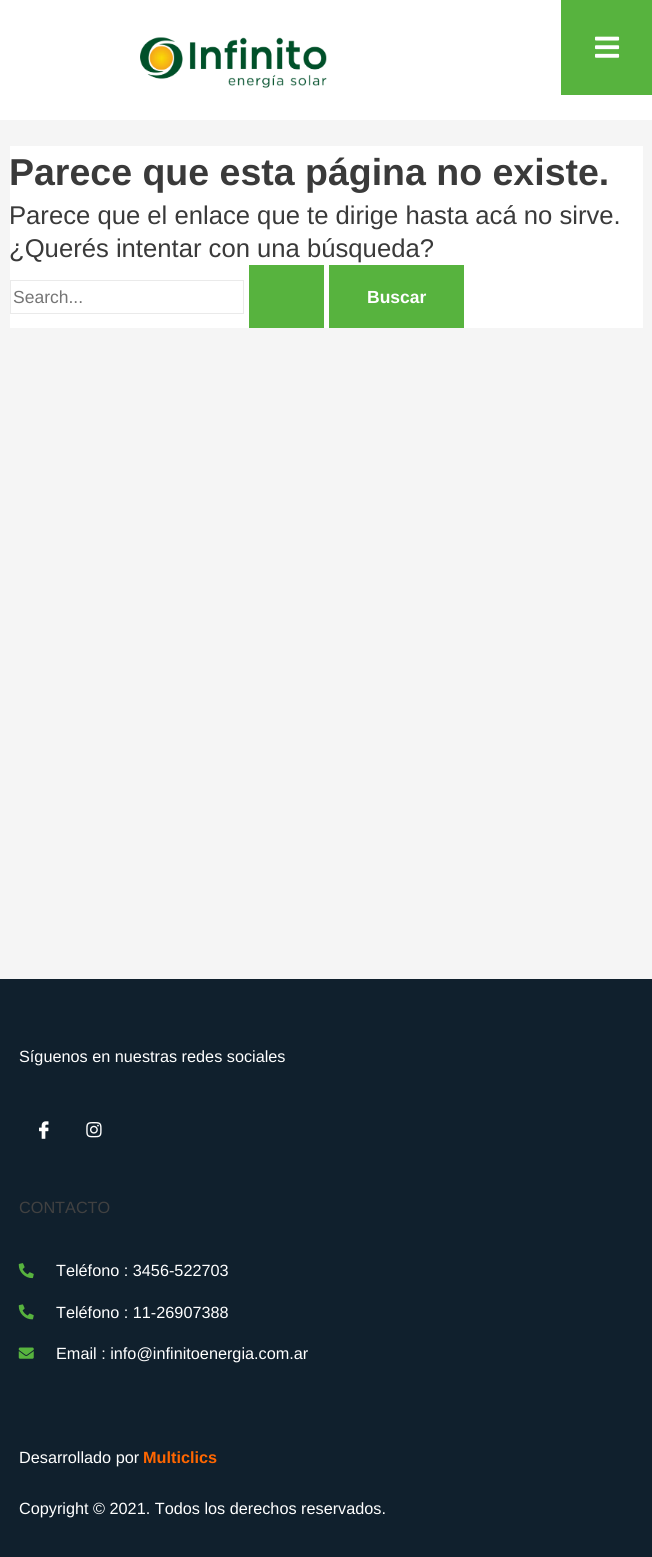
import math
import cairo



def draw_image(context, path, x, y, w, h):
    context.save()
    context.set_source_surface(cairo.ImageSurface.create_from_png(path), x, y)
    context.rectangle(x, y, w, h)
    context.fill()
    context.restore()


def draw(context):
    context.set_source_rgb(245 / 255, 245 / 255, 245 / 255)
    context.paint()
    context.set_source_rgb(1, 1, 1)
    context.rectangle(0, 0, 652, 120)
    context.fill()
    draw_image(context, "images/1.png", 140, 37, 187, 51)
    context.set_source_rgb(87 / 255, 179 / 255, 62 / 255)
    context.rectangle(561, 0, 91, 95)
    context.fill()
    draw_image(context, "images/2.png", 595, 36, 25, 22)
    context.set_source_rgb(1, 1, 1)
    context.rectangle(10, 146, 633, 182)
    context.fill()
    context.rectangle(10.5, 280.5, 233, 33)
    context.set_source_rgb(234 / 255, 234 / 255, 234 / 255)
    context.set_line_width(1)
    context.stroke()
    context.set_source_rgb(87 / 255, 179 / 255, 62 / 255)
    context.rectangle(249, 265, 75, 63)
    context.fill()
    context.rectangle(329, 265, 135, 63)
    context.fill()
    context.set_source_rgb(16 / 255, 32 / 255, 45 / 255)
    context.rectangle(0, 979, 652, 578)
    context.fill()
    draw_image(context, "images/3.png", 39, 1121, 10, 18)
    draw_image(context, "images/4.png", 86, 1122, 16, 16)
    draw_image(context, "images/5.png", 18, 1263, 16, 16)
    draw_image(context, "images/6.png", 18, 1304, 16, 16)
    draw_image(context, "images/7.png", 18, 1347, 16, 12)
    context.select_font_face("Liberation Sans", cairo.FontSlant.NORMAL, cairo.FontWeight.BOLD)
    context.set_font_size(37.5)
    context.set_source_rgb(58 / 255, 58 / 255, 58 / 255)
    context.move_to(9, 185)
    context.show_text("Parece que esta página no existe.")
    context.select_font_face("Liberation Sans")
    context.set_font_size(25.65)
    context.move_to(9, 224)
    context.show_text("Parece que el enlace que te dirige hasta acá no sirve.")
    context.move_to(9, 257)
    context.show_text("¿Querés intentar con una búsqueda?")
    context.set_font_size(17.5)
    context.set_source_rgb(117 / 255, 117 / 255, 117 / 255)
    context.move_to(13, 303)
    context.show_text("Search...")
    context.select_font_face("Liberation Sans", cairo.FontSlant.NORMAL, cairo.FontWeight.BOLD)
    context.set_source_rgb(1, 1, 1)
    context.move_to(367, 303)
    context.show_text("Buscar")
    context.select_font_face("Liberation Sans")
    context.set_font_size(16.25)
    context.move_to(19, 1062)
    context.show_text("Síguenos en nuestras redes sociales")
    context.set_source_rgb(65 / 255, 65 / 255, 65 / 255)
    context.move_to(19, 1213)
    context.show_text("CONTACTO")
    context.set_source_rgb(1, 1, 1)
    context.move_to(56, 1276)
    context.show_text("Teléfono : 3456-522703")
    context.move_to(56, 1318)
    context.show_text("Teléfono : 11-26907388")
    context.move_to(56, 1359)
    context.show_text("Email : info@infinitoenergia.com.ar")
    context.move_to(19, 1463)
    context.show_text("Desarrollado por")
    context.select_font_face("Liberation Sans", cairo.FontSlant.NORMAL, cairo.FontWeight.BOLD)
    context.set_source_rgb(1, 102 / 255, 0)
    context.move_to(143, 1463)
    context.show_text("Multiclics")
    context.select_font_face("Liberation Sans")
    context.set_source_rgb(1, 1, 1)
    context.move_to(19, 1514)
    context.show_text("Copyright © 2021. Todos los derechos reservados.")


surface = cairo.ImageSurface(cairo.Format.RGB24, 652, 1557)
context = cairo.Context(surface)
options = cairo.FontOptions()
options.set_hint_metrics(cairo.HintMetrics.OFF)
options.set_hint_style(cairo.HintStyle.NONE)
context.set_font_options(options)
context.set_miter_limit(4)
draw(context)
surface.write_to_png("out.png")
